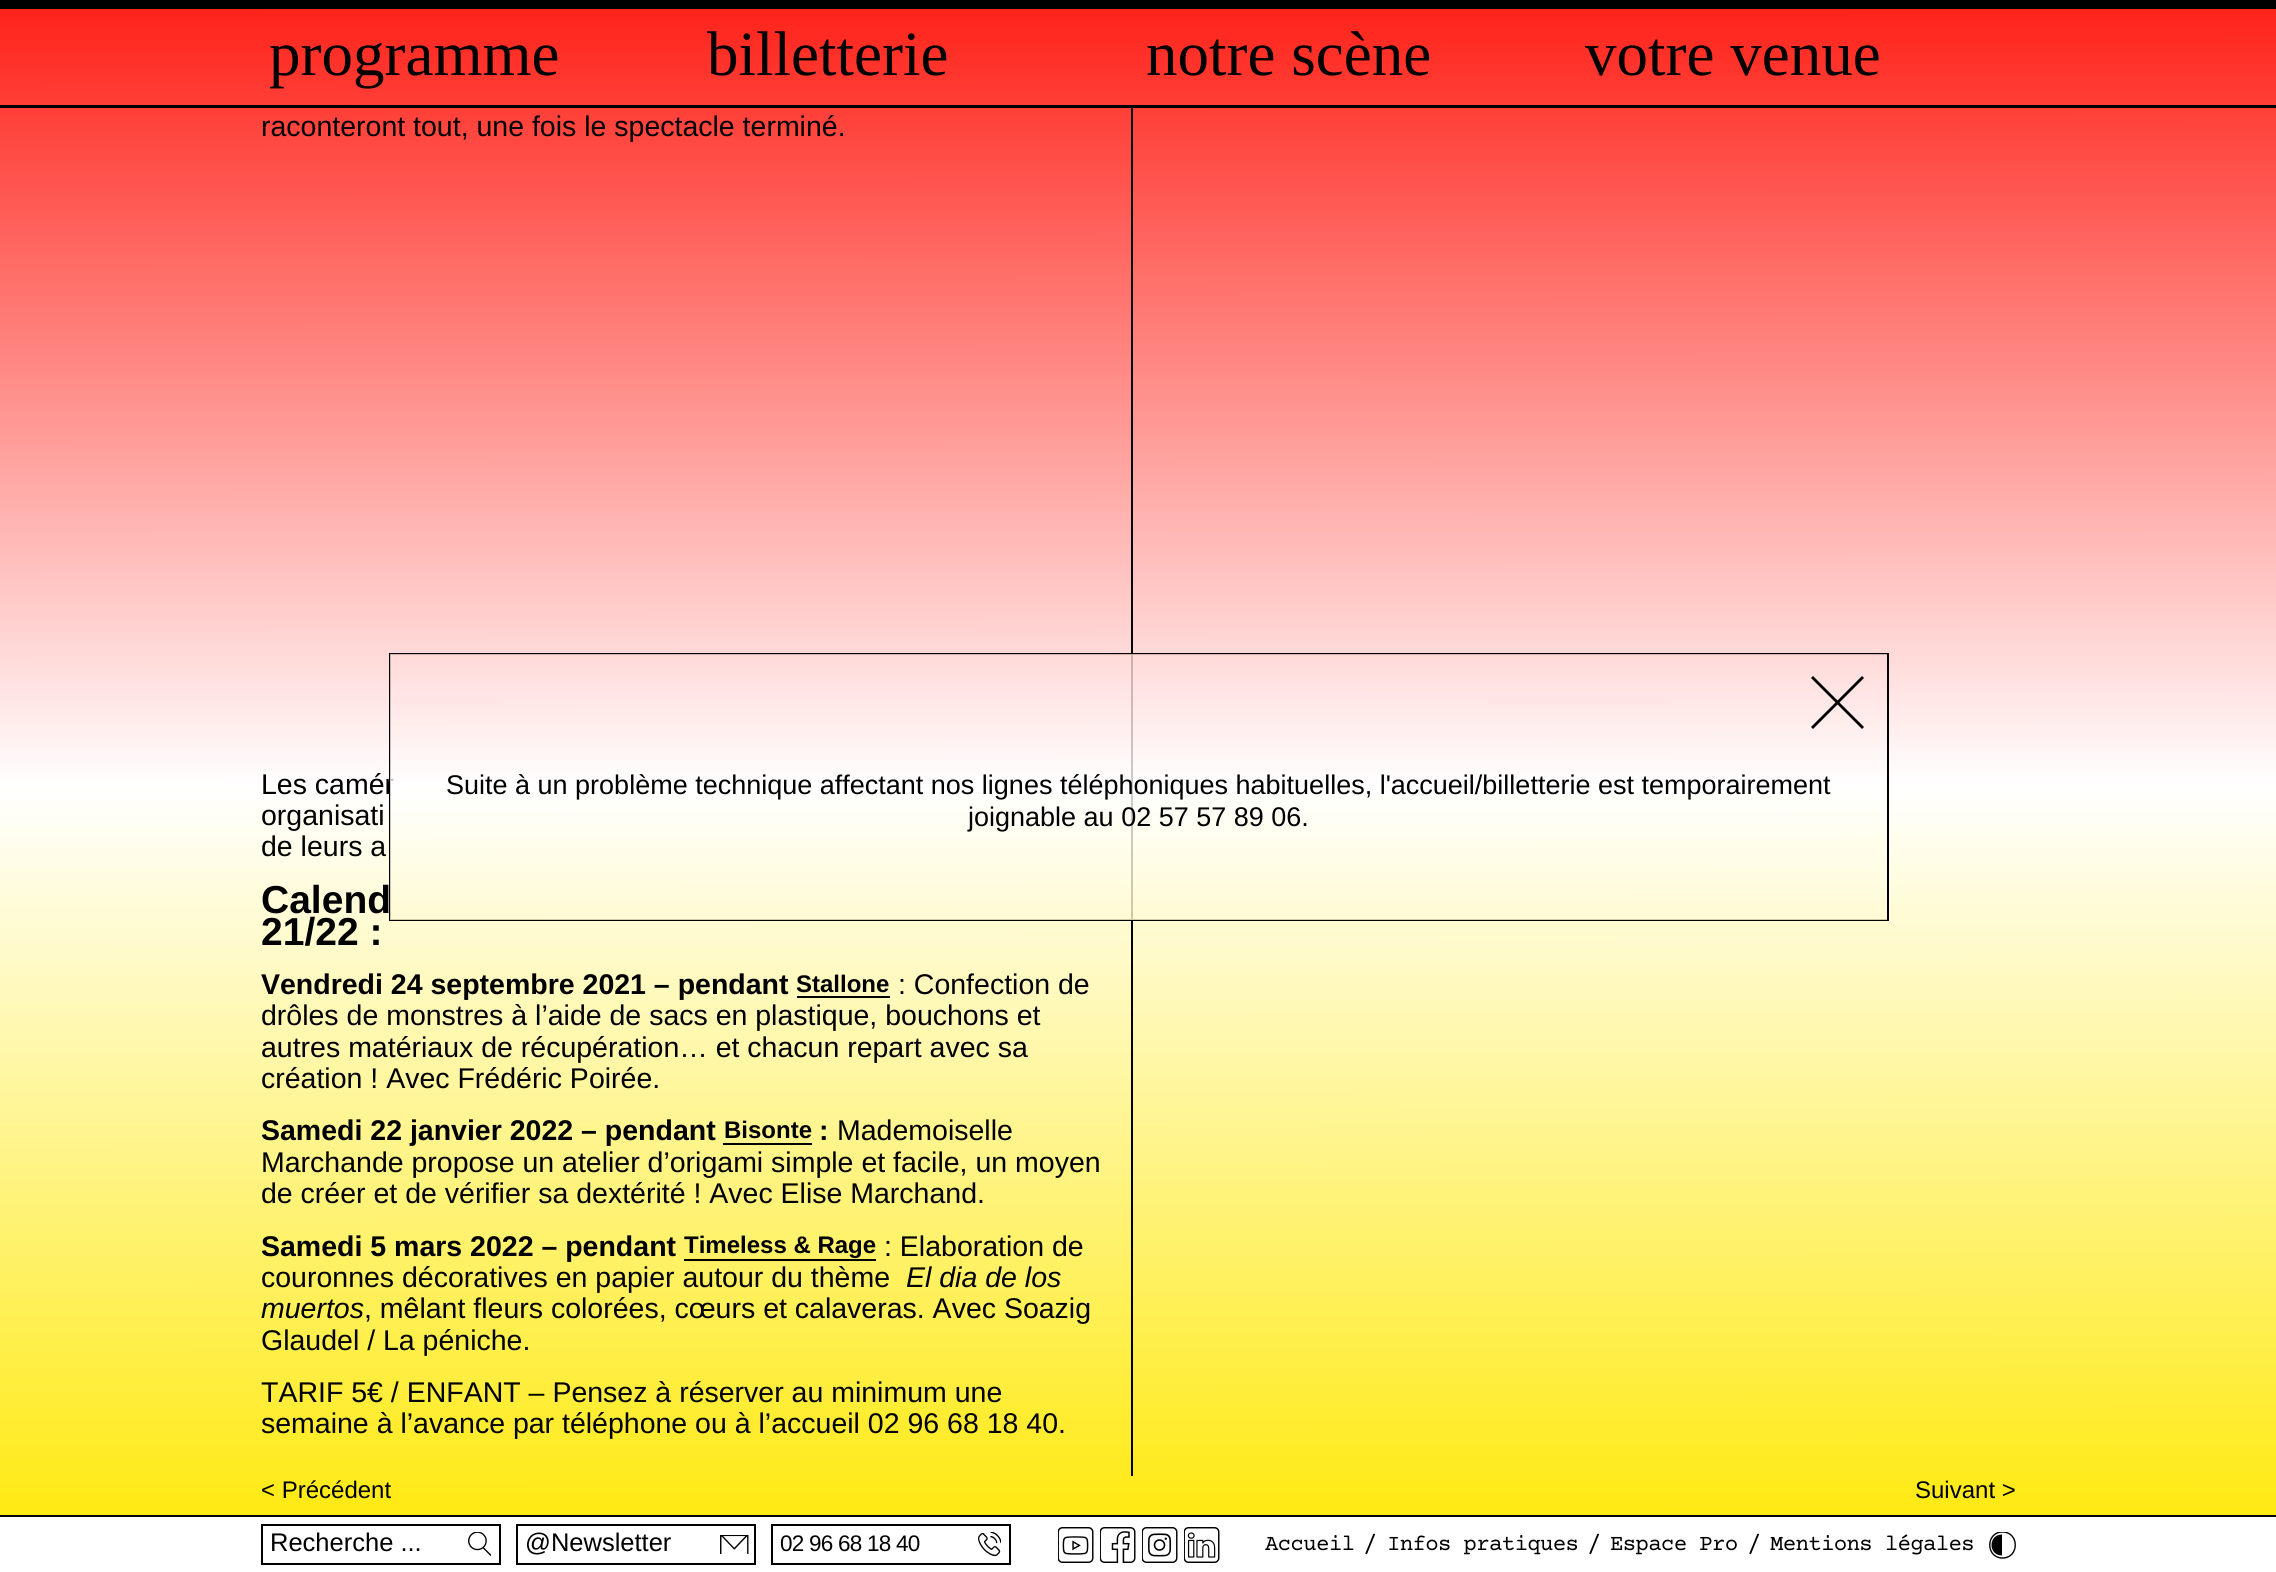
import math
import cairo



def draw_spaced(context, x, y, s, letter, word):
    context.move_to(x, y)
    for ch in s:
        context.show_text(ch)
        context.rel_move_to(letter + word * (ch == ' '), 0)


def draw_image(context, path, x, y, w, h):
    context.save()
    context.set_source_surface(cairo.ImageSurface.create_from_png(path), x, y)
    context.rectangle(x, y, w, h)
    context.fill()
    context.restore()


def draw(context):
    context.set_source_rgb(1, 1, 1)
    context.paint()
    gradient = cairo.LinearGradient(1138, 0, 1139, 1572)
    gradient.add_color_stop_rgba(0, 1, 33 / 255, 24 / 255, 1)
    gradient.add_color_stop_rgba(0.5, 1, 1, 1, 1)
    gradient.add_color_stop_rgba(1, 1, 232 / 255, 0, 1)
    context.set_source(gradient)
    context.rectangle(0, 9, 2276, 96)
    context.fill()
    context.set_source_rgb(0, 0, 0)
    context.rectangle(0, 0, 2276, 9)
    context.fill()
    context.rectangle(0, 105, 2276, 3)
    context.fill()
    gradient = cairo.LinearGradient(1138, 0, 1139, 1572)
    gradient.add_color_stop_rgba(0, 1, 33 / 255, 24 / 255, 1)
    gradient.add_color_stop_rgba(0.5, 1, 1, 1, 1)
    gradient.add_color_stop_rgba(1, 1, 232 / 255, 0, 1)
    context.set_source(gradient)
    context.rectangle(0, 108, 2276, 1407)
    context.fill()
    context.set_source_rgb(0, 0, 0)
    context.rectangle(1131, 108, 2, 1368)
    context.fill()
    context.rectangle(797, 996, 93, 2)
    context.fill()
    context.rectangle(723, 1143, 89, 2)
    context.fill()
    context.rectangle(684, 1259, 192, 2)
    context.fill()
    context.rectangle(0, 1515, 2276, 2)
    context.fill()
    context.rectangle(262, 1525, 238, 39)
    context.stroke()
    draw_image(context, "images/1.png", 468, 1532, 23, 24)
    context.rectangle(517, 1525, 238, 39)
    context.stroke()
    draw_image(context, "images/2.png", 720, 1535, 29, 19)
    context.rectangle(772, 1525, 238, 39)
    context.stroke()
    draw_image(context, "images/3.png", 978, 1532, 23, 25)
    draw_image(context, "images/4.png", 1058, 1527, 36, 36)
    draw_image(context, "images/5.png", 1100, 1527, 36, 36)
    draw_image(context, "images/6.png", 1142, 1527, 36, 36)
    draw_image(context, "images/7.png", 1184, 1527, 36, 36)
    context.save()
    context.rectangle(1989, 1532, 27, 27)
    context.clip()
    context.new_path()
    context.move_to(2002.5, 1558)
    context.curve_to(2019.5, 1558, 2019.5, 1532, 2002.5, 1532)
    context.curve_to(1985.5, 1532, 1985.5, 1558, 2002.5, 1558)
    context.close_path()
    context.set_line_width(1.4)
    context.stroke()
    context.restore()
    context.new_path()
    context.move_to(2002, 1534.5)
    context.curve_to(1988, 1534.5, 1988, 1555.5, 2002, 1555.5)
    context.line_to(2002, 1534.5)
    context.fill()
    context.rectangle(390, 654, 1498, 266)
    context.stroke()
    context.select_font_face("Liberation Serif")
    context.set_font_size(63)
    context.move_to(269, 75)
    context.show_text("programme")
    context.move_to(707, 75)
    context.show_text("billetterie")
    context.move_to(1146, 75)
    context.show_text("notre scène")
    context.move_to(1585, 75)
    context.show_text("votre venue")
    context.select_font_face("Liberation Sans")
    context.set_font_size(28.5)
    context.move_to(261, 136)
    context.show_text("raconteront tout, une fois le spectacle terminé.")
    context.move_to(261, 794)
    context.show_text("Les camér")
    context.move_to(261, 825)
    context.show_text("organisati")
    context.move_to(261, 856)
    context.show_text("de leurs a")
    context.select_font_face("Liberation Sans", cairo.FontSlant.NORMAL, cairo.FontWeight.BOLD)
    context.set_font_size(39)
    context.move_to(261, 913)
    context.show_text("Calend")
    context.move_to(261, 945)
    context.show_text("21/22 :")
    context.set_font_size(28.5)
    context.move_to(261, 994)
    context.show_text("Vendredi 24 septembre 2021 – pendant")
    context.set_font_size(24)
    context.move_to(796, 992)
    context.show_text("Stallone")
    context.select_font_face("Liberation Sans")
    context.set_font_size(28.5)
    context.move_to(898, 994)
    context.show_text(": Confection de")
    context.move_to(261, 1025)
    context.show_text("drôles de monstres à l’aide de sacs en plastique, bouchons et")
    context.move_to(261, 1057)
    context.show_text("autres matériaux de récupération… et chacun repart avec sa")
    context.move_to(261, 1088)
    context.show_text("création ! Avec Frédéric Poirée.")
    context.select_font_face("Liberation Sans", cairo.FontSlant.NORMAL, cairo.FontWeight.BOLD)
    context.move_to(261, 1140)
    context.show_text("Samedi 22 janvier 2022 – pendant")
    context.set_font_size(24)
    context.move_to(724, 1138)
    context.show_text("Bisonte")
    context.set_font_size(28.5)
    context.move_to(819, 1140)
    context.show_text(":")
    context.select_font_face("Liberation Sans")
    context.move_to(837, 1140)
    context.show_text("Mademoiselle")
    context.move_to(261, 1172)
    context.show_text("Marchande propose un atelier d’origami simple et facile, un moyen")
    context.move_to(261, 1203)
    context.show_text("de créer et de vérifier sa dextérité ! Avec Elise Marchand.")
    context.select_font_face("Liberation Sans", cairo.FontSlant.NORMAL, cairo.FontWeight.BOLD)
    context.move_to(261, 1256)
    context.show_text("Samedi 5 mars 2022 – pendant")
    context.set_font_size(24)
    context.move_to(684, 1253)
    context.show_text("Timeless & Rage")
    context.select_font_face("Liberation Sans")
    context.set_font_size(28.5)
    context.move_to(884, 1256)
    context.show_text(": Elaboration de")
    context.move_to(261, 1287)
    context.show_text("couronnes décoratives en papier autour du thème")
    context.select_font_face("Liberation Sans", cairo.FontSlant.ITALIC)
    context.move_to(906, 1287)
    context.show_text("El dia de los")
    context.move_to(261, 1318)
    context.show_text("muertos")
    context.select_font_face("Liberation Sans")
    context.move_to(364, 1318)
    context.show_text(", mêlant fleurs colorées, cœurs et calaveras. Avec Soazig")
    context.move_to(261, 1350)
    context.show_text("Glaudel / La péniche.")
    context.move_to(261, 1402)
    context.show_text("TARIF 5€ / ENFANT – Pensez à réserver au minimum une")
    context.move_to(261, 1433)
    context.show_text("semaine à l’avance par téléphone ou à l’accueil 02 96 68 18 40.")
    context.set_font_size(24)
    context.move_to(261, 1498)
    context.show_text("< Précédent")
    context.move_to(1915, 1498)
    context.show_text("Suivant >")
    context.set_font_size(25.5)
    context.move_to(270, 1551)
    context.show_text("Recherche ...")
    context.move_to(525, 1551)
    context.show_text("@Newsletter")
    context.set_font_size(22.5)
    draw_spaced(context, 780, 1551, "02 96 68 18 40", -0.75, 0)
    context.select_font_face("Courier Prime")
    draw_spaced(context, 1265, 1550, "Accueil", -0.75, 0)
    context.set_font_size(24)
    context.move_to(1363, 1550)
    context.show_text("/")
    context.set_font_size(22.5)
    draw_spaced(context, 1387, 1550, "Infos pratiques", -0.75, 0)
    context.set_font_size(24)
    context.move_to(1587, 1550)
    context.show_text("/")
    context.set_font_size(22.5)
    draw_spaced(context, 1610, 1550, "Espace Pro", -0.75, 0)
    context.set_font_size(24)
    context.move_to(1747, 1550)
    context.show_text("/")
    context.set_font_size(22.5)
    draw_spaced(context, 1770, 1550, "Mentions légales", -0.75, 0)
    gradient = cairo.LinearGradient(1138, 0, 1139, 1572)
    gradient.add_color_stop_rgba(0, 1, 33 / 255, 24 / 255, 0.8)
    gradient.add_color_stop_rgba(0.5, 1, 1, 1, 0.8)
    gradient.add_color_stop_rgba(1, 1, 232 / 255, 0, 0.8)
    context.set_source(gradient)
    context.rectangle(390, 654, 1497, 266)
    context.fill()
    context.set_source_rgb(0, 0, 0)
    context.new_path()
    context.move_to(1813, 676)
    context.line_to(1864, 727)
    context.line_to(1862, 729)
    context.line_to(1811, 678)
    context.close_path()
    context.fill()
    context.new_path()
    context.move_to(1811, 727)
    context.line_to(1862, 676)
    context.line_to(1864, 678)
    context.line_to(1813, 729)
    context.close_path()
    context.fill()
    context.select_font_face("Liberation Sans")
    context.set_font_size(27)
    context.move_to(446, 794)
    context.show_text("Suite à un problème technique affectant nos lignes téléphoniques habituelles, l'accueil/billetterie est temporairement")
    context.move_to(968, 826)
    context.show_text("joignable au 02 57 57 89 06.")


surface = cairo.ImageSurface(cairo.Format.RGB24, 2276, 1572)
context = cairo.Context(surface)
options = cairo.FontOptions()
options.set_hint_metrics(cairo.HintMetrics.OFF)
options.set_hint_style(cairo.HintStyle.NONE)
context.set_font_options(options)
context.set_miter_limit(4)
draw(context)
surface.write_to_png("out.png")
